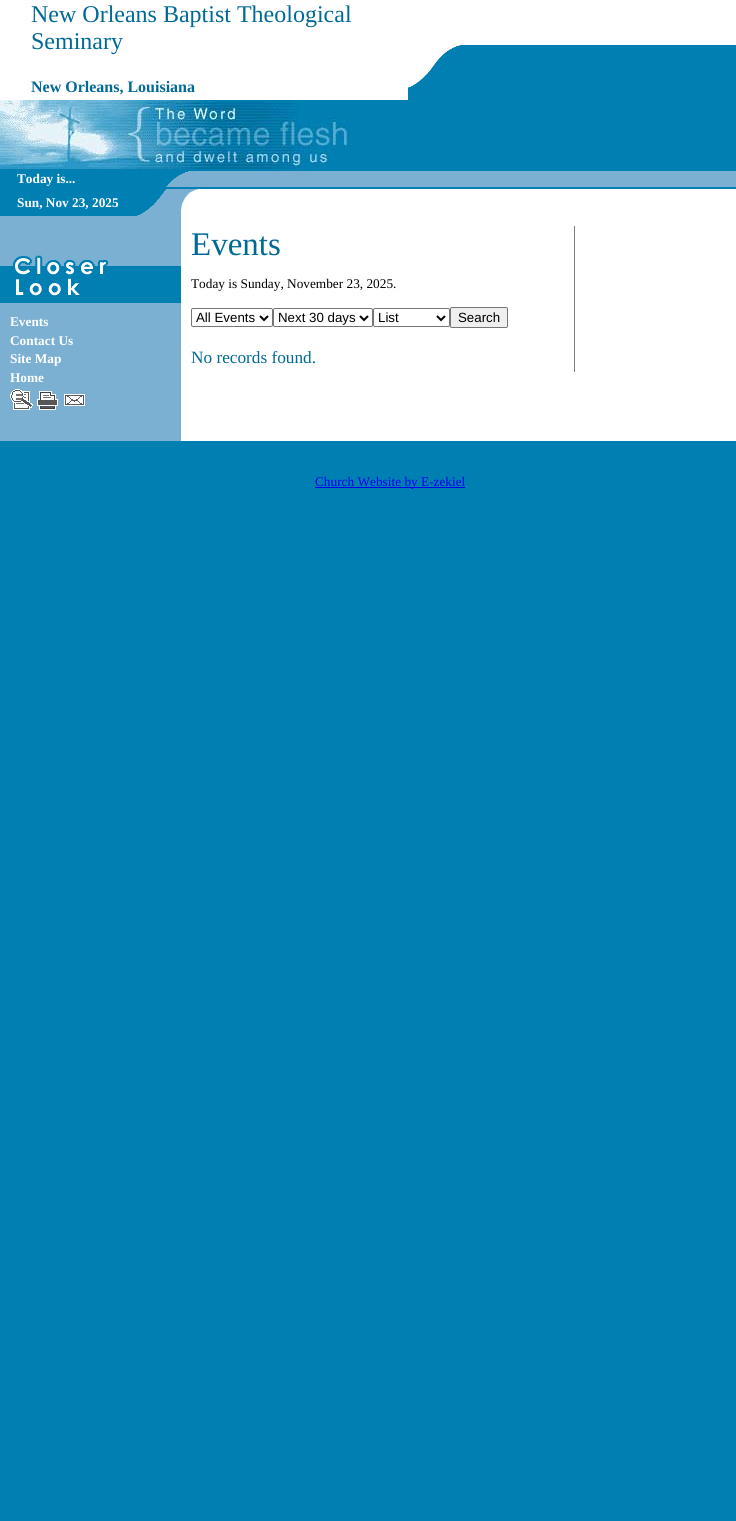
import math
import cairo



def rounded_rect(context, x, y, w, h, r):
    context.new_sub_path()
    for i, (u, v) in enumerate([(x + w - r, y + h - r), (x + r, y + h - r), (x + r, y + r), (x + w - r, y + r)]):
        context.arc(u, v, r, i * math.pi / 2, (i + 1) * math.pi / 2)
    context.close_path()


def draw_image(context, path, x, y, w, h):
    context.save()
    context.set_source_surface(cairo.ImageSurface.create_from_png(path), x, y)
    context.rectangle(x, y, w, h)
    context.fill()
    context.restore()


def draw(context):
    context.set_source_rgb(0, 127 / 255, 178 / 255)
    context.paint()
    context.set_source_rgb(1, 1, 1)
    context.rectangle(408, 0, 328, 32)
    context.fill()
    context.rectangle(0, 0, 408, 100)
    context.fill()
    draw_image(context, "images/1.png", 408, 32, 328, 56)
    draw_image(context, "images/2.png", 0, 100, 352, 69)
    draw_image(context, "images/3.png", 166, 171, 570, 16)
    draw_image(context, "images/4.png", 137, 189, 599, 27)
    context.set_source_rgb(124 / 255, 176 / 255, 210 / 255)
    context.rectangle(0, 216, 181, 225)
    context.fill()
    draw_image(context, "images/5.png", 0, 255, 181, 48)
    draw_image(context, "images/6.png", 10, 389, 23, 21)
    draw_image(context, "images/7.png", 37, 391, 21, 19)
    draw_image(context, "images/8.png", 64, 394, 21, 12)
    context.set_source_rgb(1, 1, 1)
    context.rectangle(181, 216, 555, 225)
    context.fill()
    rounded_rect(context, 191.5, 308.5, 81, 18, 1.5)
    context.set_source_rgb(118 / 255, 118 / 255, 118 / 255)
    context.set_line_width(1)
    context.stroke()
    context.new_path()
    context.move_to(260, 316)
    context.line_to(264, 320)
    context.line_to(268, 316)
    context.set_source_rgb(0, 0, 0)
    context.set_line_width(2)
    context.stroke()
    rounded_rect(context, 273.5, 308.5, 99, 18, 1.5)
    context.set_source_rgb(118 / 255, 118 / 255, 118 / 255)
    context.set_line_width(1)
    context.stroke()
    context.new_path()
    context.move_to(360, 316)
    context.line_to(364, 320)
    context.line_to(368, 316)
    context.set_source_rgb(0, 0, 0)
    context.set_line_width(2)
    context.stroke()
    rounded_rect(context, 373.5, 308.5, 76, 18, 1.5)
    context.set_source_rgb(118 / 255, 118 / 255, 118 / 255)
    context.set_line_width(1)
    context.stroke()
    context.new_path()
    context.move_to(437, 316)
    context.line_to(441, 320)
    context.line_to(445, 316)
    context.set_source_rgb(0, 0, 0)
    context.set_line_width(2)
    context.stroke()
    context.set_source_rgb(239 / 255, 239 / 255, 239 / 255)
    rounded_rect(context, 450.5, 307.5, 57, 20, 1.5)
    context.fill_preserve()
    context.set_source_rgb(118 / 255, 118 / 255, 118 / 255)
    context.set_line_width(1)
    context.stroke()
    context.set_source_rgb(126 / 255, 126 / 255, 126 / 255)
    context.rectangle(574, 226, 1, 146)
    context.fill()
    context.set_source_rgb(0, 0, 238 / 255)
    context.rectangle(315, 487, 150, 1)
    context.fill()
    context.select_font_face("Liberation Serif")
    context.set_font_size(24)
    context.set_source_rgb(0, 105 / 255, 150 / 255)
    context.move_to(31, 22)
    context.show_text("New Orleans Baptist Theological")
    context.move_to(31, 49)
    context.show_text("Seminary")
    context.select_font_face("Liberation Serif", cairo.FontSlant.NORMAL, cairo.FontWeight.BOLD)
    context.set_font_size(16)
    context.move_to(31, 92)
    context.show_text("New Orleans, Louisiana")
    context.set_font_size(13.3)
    context.set_source_rgb(1, 1, 1)
    context.move_to(17, 183)
    context.show_text("Today is...")
    context.move_to(17, 207)
    context.show_text("Sun, Nov 23, 2025")
    context.move_to(10, 326)
    context.show_text("Events")
    context.move_to(10, 345)
    context.show_text("Contact Us")
    context.move_to(10, 363)
    context.show_text("Site Map")
    context.move_to(10, 382)
    context.show_text("Home")
    context.select_font_face("Liberation Serif")
    context.set_font_size(33)
    context.set_source_rgb(0, 105 / 255, 150 / 255)
    context.move_to(191, 255)
    context.show_text("Events")
    context.set_font_size(13.3)
    context.set_source_rgb(0, 0, 0)
    context.move_to(191, 288)
    context.show_text("Today is Sunday, November 23, 2025.")
    context.select_font_face("Liberation Sans")
    context.move_to(196, 322)
    context.show_text("All Events")
    context.move_to(278, 322)
    context.show_text("Next 30 days")
    context.move_to(378, 322)
    context.show_text("List")
    context.move_to(458, 322)
    context.show_text("Search")
    context.select_font_face("Liberation Serif")
    context.set_font_size(17.25)
    context.set_source_rgb(0, 105 / 255, 150 / 255)
    context.move_to(191, 363)
    context.show_text("No records found.")
    context.set_font_size(13.3)
    context.set_source_rgb(0, 0, 238 / 255)
    context.move_to(315, 486)
    context.show_text("Church Website by E-zekiel")


surface = cairo.ImageSurface(cairo.Format.RGB24, 736, 1521)
context = cairo.Context(surface)
options = cairo.FontOptions()
options.set_hint_metrics(cairo.HintMetrics.OFF)
options.set_hint_style(cairo.HintStyle.NONE)
context.set_font_options(options)
context.set_miter_limit(4)
draw(context)
surface.write_to_png("out.png")
